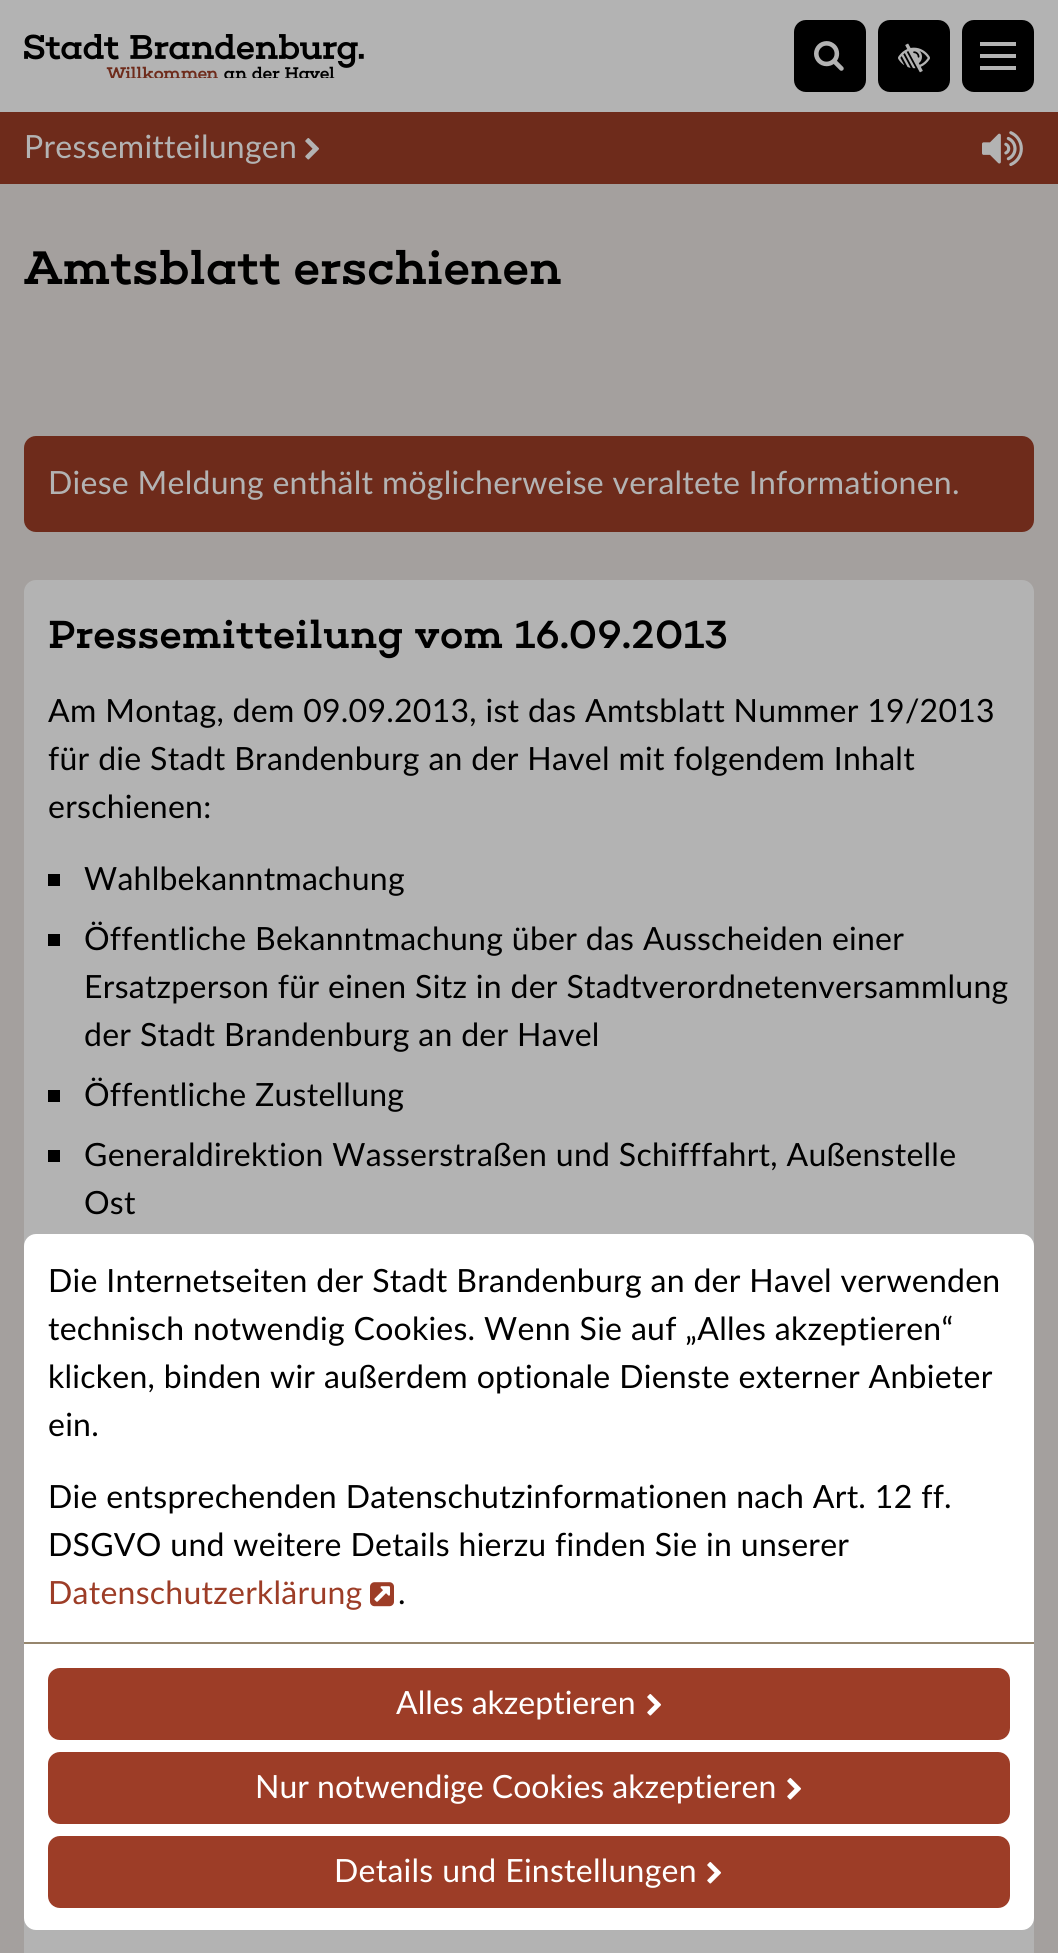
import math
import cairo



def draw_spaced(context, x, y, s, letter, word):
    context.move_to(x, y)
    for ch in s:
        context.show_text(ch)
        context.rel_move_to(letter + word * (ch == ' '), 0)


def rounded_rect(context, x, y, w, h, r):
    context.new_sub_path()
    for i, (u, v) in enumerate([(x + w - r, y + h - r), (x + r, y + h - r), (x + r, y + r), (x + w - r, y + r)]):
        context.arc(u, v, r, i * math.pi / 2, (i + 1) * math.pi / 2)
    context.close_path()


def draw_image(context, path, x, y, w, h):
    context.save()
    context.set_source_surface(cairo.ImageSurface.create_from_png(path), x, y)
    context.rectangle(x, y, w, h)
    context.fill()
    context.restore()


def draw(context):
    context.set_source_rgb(164 / 255, 160 / 255, 158 / 255)
    context.paint()
    context.set_source_rgb(179 / 255, 179 / 255, 179 / 255)
    context.rectangle(0, 0, 1058, 112)
    context.fill()
    draw_image(context, "images/1.png", 24, 34, 340, 44)
    context.set_source_rgb(0, 0, 0)
    rounded_rect(context, 794, 20, 72, 72, 12)
    context.fill()
    draw_image(context, "images/2.png", 814, 41, 30, 30)
    rounded_rect(context, 878, 20, 72, 72, 12)
    context.fill()
    draw_image(context, "images/3.png", 898, 43, 32, 30)
    rounded_rect(context, 962, 20, 72, 72, 12)
    context.fill()
    context.set_source_rgb(179 / 255, 179 / 255, 179 / 255)
    context.rectangle(980, 42, 36, 4)
    context.fill()
    context.rectangle(980, 54, 36, 4)
    context.fill()
    context.rectangle(980, 66, 36, 4)
    context.fill()
    context.set_source_rgb(110 / 255, 43 / 255, 27 / 255)
    context.rectangle(0, 112, 1058, 72)
    context.fill()
    draw_image(context, "images/4.png", 305, 138, 14, 22)
    draw_image(context, "images/5.png", 982, 131, 41, 35)
    rounded_rect(context, 24, 436, 1010, 96, 12)
    context.fill()
    context.set_source_rgb(179 / 255, 179 / 255, 179 / 255)
    rounded_rect(context, 24, 580, 1010, 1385, 12)
    context.fill()
    context.set_source_rgb(0, 0, 0)
    context.rectangle(48, 874, 12, 12)
    context.fill()
    context.rectangle(48, 934, 12, 12)
    context.fill()
    context.rectangle(48, 1090, 12, 12)
    context.fill()
    context.rectangle(48, 1150, 12, 12)
    context.fill()
    context.set_source_rgb(1, 1, 1)
    context.new_path()
    context.move_to(36, 1234)
    context.line_to(1022, 1234)
    context.curve_to(1028.5, 1234, 1034, 1239.5, 1034, 1246)
    context.line_to(1034, 1642)
    context.line_to(24, 1642)
    context.line_to(24, 1246)
    context.curve_to(24, 1239.5, 29.5, 1234, 36, 1234)
    context.close_path()
    context.fill()
    draw_image(context, "images/6.png", 370, 1582, 24, 25)
    context.new_path()
    context.move_to(24, 1642)
    context.line_to(1034, 1642)
    context.line_to(1034, 1918)
    context.curve_to(1034, 1924.5, 1028.5, 1930, 1022, 1930)
    context.line_to(36, 1930)
    context.curve_to(29.5, 1930, 24, 1924.5, 24, 1918)
    context.close_path()
    context.fill()
    context.set_source_rgb(150 / 255, 134 / 255, 109 / 255)
    context.rectangle(24, 1642, 1010, 2)
    context.fill()
    context.set_source_rgb(157 / 255, 61 / 255, 39 / 255)
    rounded_rect(context, 48, 1668, 962, 72, 12)
    context.fill()
    draw_image(context, "images/7.png", 647, 1694, 14, 22)
    rounded_rect(context, 48, 1752, 962, 72, 12)
    context.fill()
    draw_image(context, "images/7.png", 787, 1778, 14, 22)
    rounded_rect(context, 48, 1836, 962, 72, 12)
    context.fill()
    draw_image(context, "images/7.png", 707, 1862, 14, 22)
    context.select_font_face("Lato")
    context.set_font_size(32)
    context.set_source_rgb(179 / 255, 179 / 255, 179 / 255)
    draw_spaced(context, 24, 158, "Pressemitteilungen", 0.25, 0)
    context.select_font_face("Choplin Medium")
    context.set_font_size(48)
    context.set_source_rgb(0, 0, 0)
    context.move_to(24, 284)
    context.show_text("Amtsblatt erschienen")
    context.select_font_face("Lato")
    context.set_font_size(32)
    context.set_source_rgb(179 / 255, 179 / 255, 179 / 255)
    draw_spaced(context, 48, 494, "Diese Meldung enthält möglicherweise veraltete Informationen.", 0.25, 0.25)
    context.select_font_face("Choplin Medium")
    context.set_font_size(40)
    context.set_source_rgb(0, 0, 0)
    draw_spaced(context, 48, 648, "Pressemitteilung vom 16.09.2013", 0.25, 0.25)
    context.select_font_face("Lato")
    context.set_font_size(32)
    draw_spaced(context, 48, 722, "Am Montag, dem 09.09.2013, ist das Amtsblatt Nummer 19/2013", 0.25, 0.25)
    draw_spaced(context, 48, 770, "für die Stadt Brandenburg an der Havel mit folgendem Inhalt", 0.25, 0.25)
    draw_spaced(context, 48, 818, "erschienen:", 0.25, 0)
    draw_spaced(context, 84, 890, "Wahlbekanntmachung", 0.25, 0)
    draw_spaced(context, 84, 950, "Öffentliche Bekanntmachung über das Ausscheiden einer", 0.25, 0.25)
    draw_spaced(context, 84, 998, "Ersatzperson für einen Sitz in der Stadtverordnetenversammlung", 0.25, 0.25)
    draw_spaced(context, 84, 1046, "der Stadt Brandenburg an der Havel", 0.25, 0.25)
    draw_spaced(context, 84, 1106, "Öffentliche Zustellung", 0.25, 0.25)
    draw_spaced(context, 84, 1166, "Generaldirektion Wasserstraßen und Schifffahrt, Außenstelle", 0.25, 0.25)
    draw_spaced(context, 84, 1214, "Ost", 0.25, 0)
    draw_spaced(context, 48, 1292, "Die Internetseiten der Stadt Brandenburg an der Havel verwenden", 0.25, 0.25)
    draw_spaced(context, 48, 1340, "technisch notwendig Cookies. Wenn Sie auf „Alles akzeptieren“", 0.25, 0.25)
    draw_spaced(context, 48, 1388, "klicken, binden wir außerdem optionale Dienste externer Anbieter", 0.25, 0.25)
    draw_spaced(context, 48, 1436, "ein.", 0.25, 0)
    draw_spaced(context, 48, 1508, "Die entsprechenden Datenschutzinformationen nach Art. 12 ff.", 0.25, 0.25)
    draw_spaced(context, 48, 1556, "DSGVO und weitere Details hierzu finden Sie in unserer", 0.25, 0.25)
    context.set_source_rgb(157 / 255, 61 / 255, 39 / 255)
    draw_spaced(context, 48, 1604, "Datenschutzerklärung", 0.25, 0)
    context.set_source_rgb(0, 0, 0)
    draw_spaced(context, 398, 1604, ".", 0.25, 0)
    context.set_source_rgb(1, 1, 1)
    context.move_to(396, 1714)
    context.show_text("Alles akzeptieren")
    context.move_to(255, 1798)
    context.show_text("Nur notwendige Cookies akzeptieren")
    draw_spaced(context, 334, 1882, "Details und Einstellungen", 0.25, 0.25)


surface = cairo.ImageSurface(cairo.Format.RGB24, 1058, 1953)
context = cairo.Context(surface)
options = cairo.FontOptions()
options.set_hint_metrics(cairo.HintMetrics.OFF)
options.set_hint_style(cairo.HintStyle.NONE)
context.set_font_options(options)
context.set_miter_limit(4)
draw(context)
surface.write_to_png("out.png")
